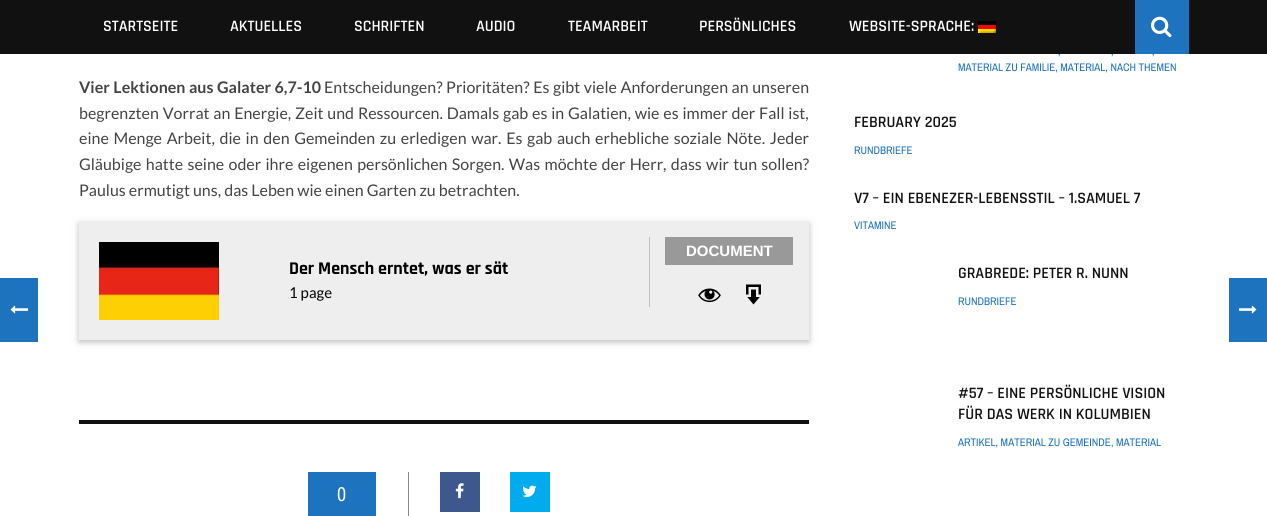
import math
import cairo



def draw_spaced(context, x, y, s, letter, word):
    context.move_to(x, y)
    for ch in s:
        context.show_text(ch)
        context.rel_move_to(letter + word * (ch == ' '), 0)


def rounded_rect(context, x, y, w, h, r):
    context.new_sub_path()
    for i, (u, v) in enumerate([(x + w - r, y + h - r), (x + r, y + h - r), (x + r, y + r), (x + w - r, y + r)]):
        context.arc(u, v, r, i * math.pi / 2, (i + 1) * math.pi / 2)
    context.close_path()


def draw_shadow(context, x, y, w, h, r, blur, alpha):
    context.push_group_with_content(cairo.Content.ALPHA)
    context.set_operator(cairo.Operator.SOURCE)
    for i in range(15, -16, -2):
        e = blur * i / 6
        if min(w, h) + 2 * e > 0:
            context.set_source_rgba(0, 0, 0, alpha * math.erfc((i - 1) / 8.5) / 2)
            rounded_rect(context, x - e, y - e, w + 2 * e, h + 2 * e, max(0, min(r + e + blur * .6, min(w, h) / 2 + e)))
            context.fill()
    context.mask(context.pop_group())


def draw_image(context, path, x, y, w, h):
    context.save()
    context.set_source_surface(cairo.ImageSurface.create_from_png(path), x, y)
    context.rectangle(x, y, w, h)
    context.fill()
    context.restore()


def draw(context):
    context.set_source_rgb(1, 1, 1)
    context.paint()
    context.set_source_rgb(0, 0, 0)
    draw_shadow(context, 79, 224, 730, 118, 0, 5, 0.12)
    draw_shadow(context, 79, 224, 730, 118, 0, 2.5, 0.16)
    context.set_source_rgb(238 / 255, 238 / 255, 238 / 255)
    context.rectangle(79, 222, 730, 118)
    context.fill()
    draw_image(context, "images/3.png", 99, 242, 120, 78)
    context.set_source_rgb(192 / 255, 192 / 255, 192 / 255)
    context.rectangle(649, 237, 1, 70)
    context.fill()
    context.set_source_rgb(153 / 255, 153 / 255, 153 / 255)
    context.rectangle(665, 237, 128, 28)
    context.fill()
    draw_image(context, "images/4.png", 698, 288, 23, 15)
    draw_image(context, "images/5.png", 746, 284, 15, 21)
    context.set_source_rgb(30 / 255, 115 / 255, 190 / 255)
    context.rectangle(0, 278, 38, 64)
    context.fill()
    draw_image(context, "images/6.png", 10, 305, 18, 9)
    context.rectangle(1229, 278, 38, 64)
    context.fill()
    draw_image(context, "images/7.png", 1239, 305, 18, 9)
    context.set_source_rgb(17 / 255, 17 / 255, 17 / 255)
    context.rectangle(79, 420, 730, 4)
    context.fill()
    context.set_source_rgb(136 / 255, 136 / 255, 136 / 255)
    context.rectangle(408, 472, 1, 44)
    context.fill()
    context.set_source_rgb(30 / 255, 115 / 255, 190 / 255)
    context.rectangle(308, 472, 68, 44)
    context.fill()
    context.set_source_rgb(62 / 255, 87 / 255, 140 / 255)
    context.rectangle(440, 472, 40, 40)
    context.fill()
    draw_image(context, "images/8.png", 455, 483, 9, 16)
    context.set_source_rgb(0, 172 / 255, 238 / 255)
    context.rectangle(510, 472, 40, 40)
    context.fill()
    draw_image(context, "images/9.png", 522, 485, 15, 12)
    context.select_font_face("Lato", cairo.FontSlant.NORMAL, cairo.FontWeight.BOLD)
    context.set_font_size(16)
    context.set_source_rgb(68 / 255, 68 / 255, 68 / 255)
    draw_spaced(context, 79, 93, "Vier Lektionen aus Galater 6,7-10", 0, 0.5)
    context.select_font_face("Lato")
    draw_spaced(context, 324, 93, "Entscheidungen? Prioritäten? Es gibt viele Anforderungen an unseren", 0, 0.5)
    draw_spaced(context, 79, 119, "begrenzten Vorrat an Energie, Zeit und Ressourcen. Damals gab es in Galatien, wie es immer der Fall ist,", 0, 0.75)
    draw_spaced(context, 79, 144, "eine Menge Arbeit, die in den Gemeinden zu erledigen war. Es gab auch erhebliche soziale Nöte. Jeder", 0, 1.6)
    draw_spaced(context, 79, 170, "Gläubige hatte seine oder ihre eigenen persönlichen Sorgen. Was möchte der Herr, dass wir tun sollen?", 0, 1.25)
    context.move_to(79, 196)
    context.show_text("Paulus ermutigt uns, das Leben wie einen Garten zu betrachten.")
    context.select_font_face("Liberation Sans", cairo.FontSlant.NORMAL, cairo.FontWeight.BOLD)
    context.set_font_size(15)
    context.set_source_rgb(1, 1, 1)
    context.move_to(686, 256)
    context.show_text("DOCUMENT")
    context.select_font_face("Rajdhani", cairo.FontSlant.NORMAL, cairo.FontWeight.BOLD)
    context.set_font_size(18)
    context.set_source_rgb(0, 0, 0)
    context.move_to(289, 274)
    context.show_text("Der Mensch erntet, was er sät")
    context.select_font_face("Lato")
    context.set_font_size(15)
    context.move_to(289, 298)
    context.show_text("1 page")
    context.select_font_face("Archivo Narrow")
    context.set_font_size(20)
    context.set_source_rgb(1, 1, 1)
    context.move_to(337, 501)
    context.show_text("0")
    context.set_font_size(11)
    context.set_source_rgb(30 / 255, 115 / 255, 190 / 255)
    context.move_to(1058, 55)
    context.show_text(",")
    context.move_to(1111, 55)
    context.show_text(",")
    context.move_to(1152, 55)
    context.show_text(",")
    context.set_source_rgb(17 / 255, 17 / 255, 17 / 255)
    context.rectangle(0, 0, 1267, 54)
    context.fill()
    context.set_source_rgb(30 / 255, 115 / 255, 190 / 255)
    context.rectangle(1135, 0, 54, 54)
    context.fill()
    draw_image(context, "images/2.png", 1151, 16, 21, 22)
    draw_image(context, "images/1.png", 978, 21, 18, 12)
    context.select_font_face("Rajdhani SemiBold")
    context.set_font_size(16)
    context.set_source_rgb(1, 1, 1)
    context.move_to(849, 31)
    context.show_text("WEBSITE-SPRACHE:")
    context.move_to(699, 31)
    context.show_text("PERSÖNLICHES")
    context.move_to(568, 31)
    context.show_text("TEAMARBEIT")
    context.move_to(476, 31)
    context.show_text("AUDIO")
    context.move_to(354, 31)
    context.show_text("SCHRIFTEN")
    context.move_to(230, 31)
    context.show_text("AKTUELLES")
    context.move_to(103, 31)
    context.show_text("STARTSEITE")
    context.select_font_face("Archivo Narrow")
    context.set_font_size(11)
    context.set_source_rgb(30 / 255, 115 / 255, 190 / 255)
    context.move_to(958, 71)
    context.show_text("MATERIAL ZU FAMILIE, MATERIAL, NACH THEMEN")
    context.select_font_face("Rajdhani SemiBold")
    context.set_font_size(16)
    context.set_source_rgb(17 / 255, 17 / 255, 17 / 255)
    context.move_to(854, 127)
    context.show_text("FEBRUARY 2025")
    context.select_font_face("Archivo Narrow")
    context.set_font_size(11)
    context.set_source_rgb(30 / 255, 115 / 255, 190 / 255)
    context.move_to(854, 154)
    context.show_text("RUNDBRIEFE")
    context.select_font_face("Rajdhani SemiBold")
    context.set_font_size(16)
    context.set_source_rgb(17 / 255, 17 / 255, 17 / 255)
    context.move_to(854, 203)
    context.show_text("V7 – EIN EBENEZER-LEBENSSTIL – 1.SAMUEL 7")
    context.select_font_face("Archivo Narrow")
    context.set_font_size(11)
    context.set_source_rgb(30 / 255, 115 / 255, 190 / 255)
    context.move_to(854, 229)
    context.show_text("VITAMINE")
    context.select_font_face("Rajdhani SemiBold")
    context.set_font_size(16)
    context.set_source_rgb(17 / 255, 17 / 255, 17 / 255)
    context.move_to(958, 278)
    context.show_text("GRABREDE: PETER R. NUNN")
    context.select_font_face("Archivo Narrow")
    context.set_font_size(11)
    context.set_source_rgb(30 / 255, 115 / 255, 190 / 255)
    context.move_to(958, 305)
    context.show_text("RUNDBRIEFE")
    context.select_font_face("Rajdhani SemiBold")
    context.set_font_size(16)
    context.set_source_rgb(17 / 255, 17 / 255, 17 / 255)
    context.move_to(958, 398)
    context.show_text("#57 – EINE PERSÖNLICHE VISION")
    context.move_to(958, 419)
    context.show_text("FÜR DAS WERK IN KOLUMBIEN")
    context.select_font_face("Archivo Narrow")
    context.set_font_size(11)
    context.set_source_rgb(30 / 255, 115 / 255, 190 / 255)
    context.move_to(958, 446)
    context.show_text("ARTIKEL, MATERIAL ZU GEMEINDE, MATERIAL")


surface = cairo.ImageSurface(cairo.Format.RGB24, 1267, 516)
context = cairo.Context(surface)
options = cairo.FontOptions()
options.set_hint_metrics(cairo.HintMetrics.OFF)
options.set_hint_style(cairo.HintStyle.NONE)
context.set_font_options(options)
context.set_miter_limit(4)
draw(context)
surface.write_to_png("out.png")
